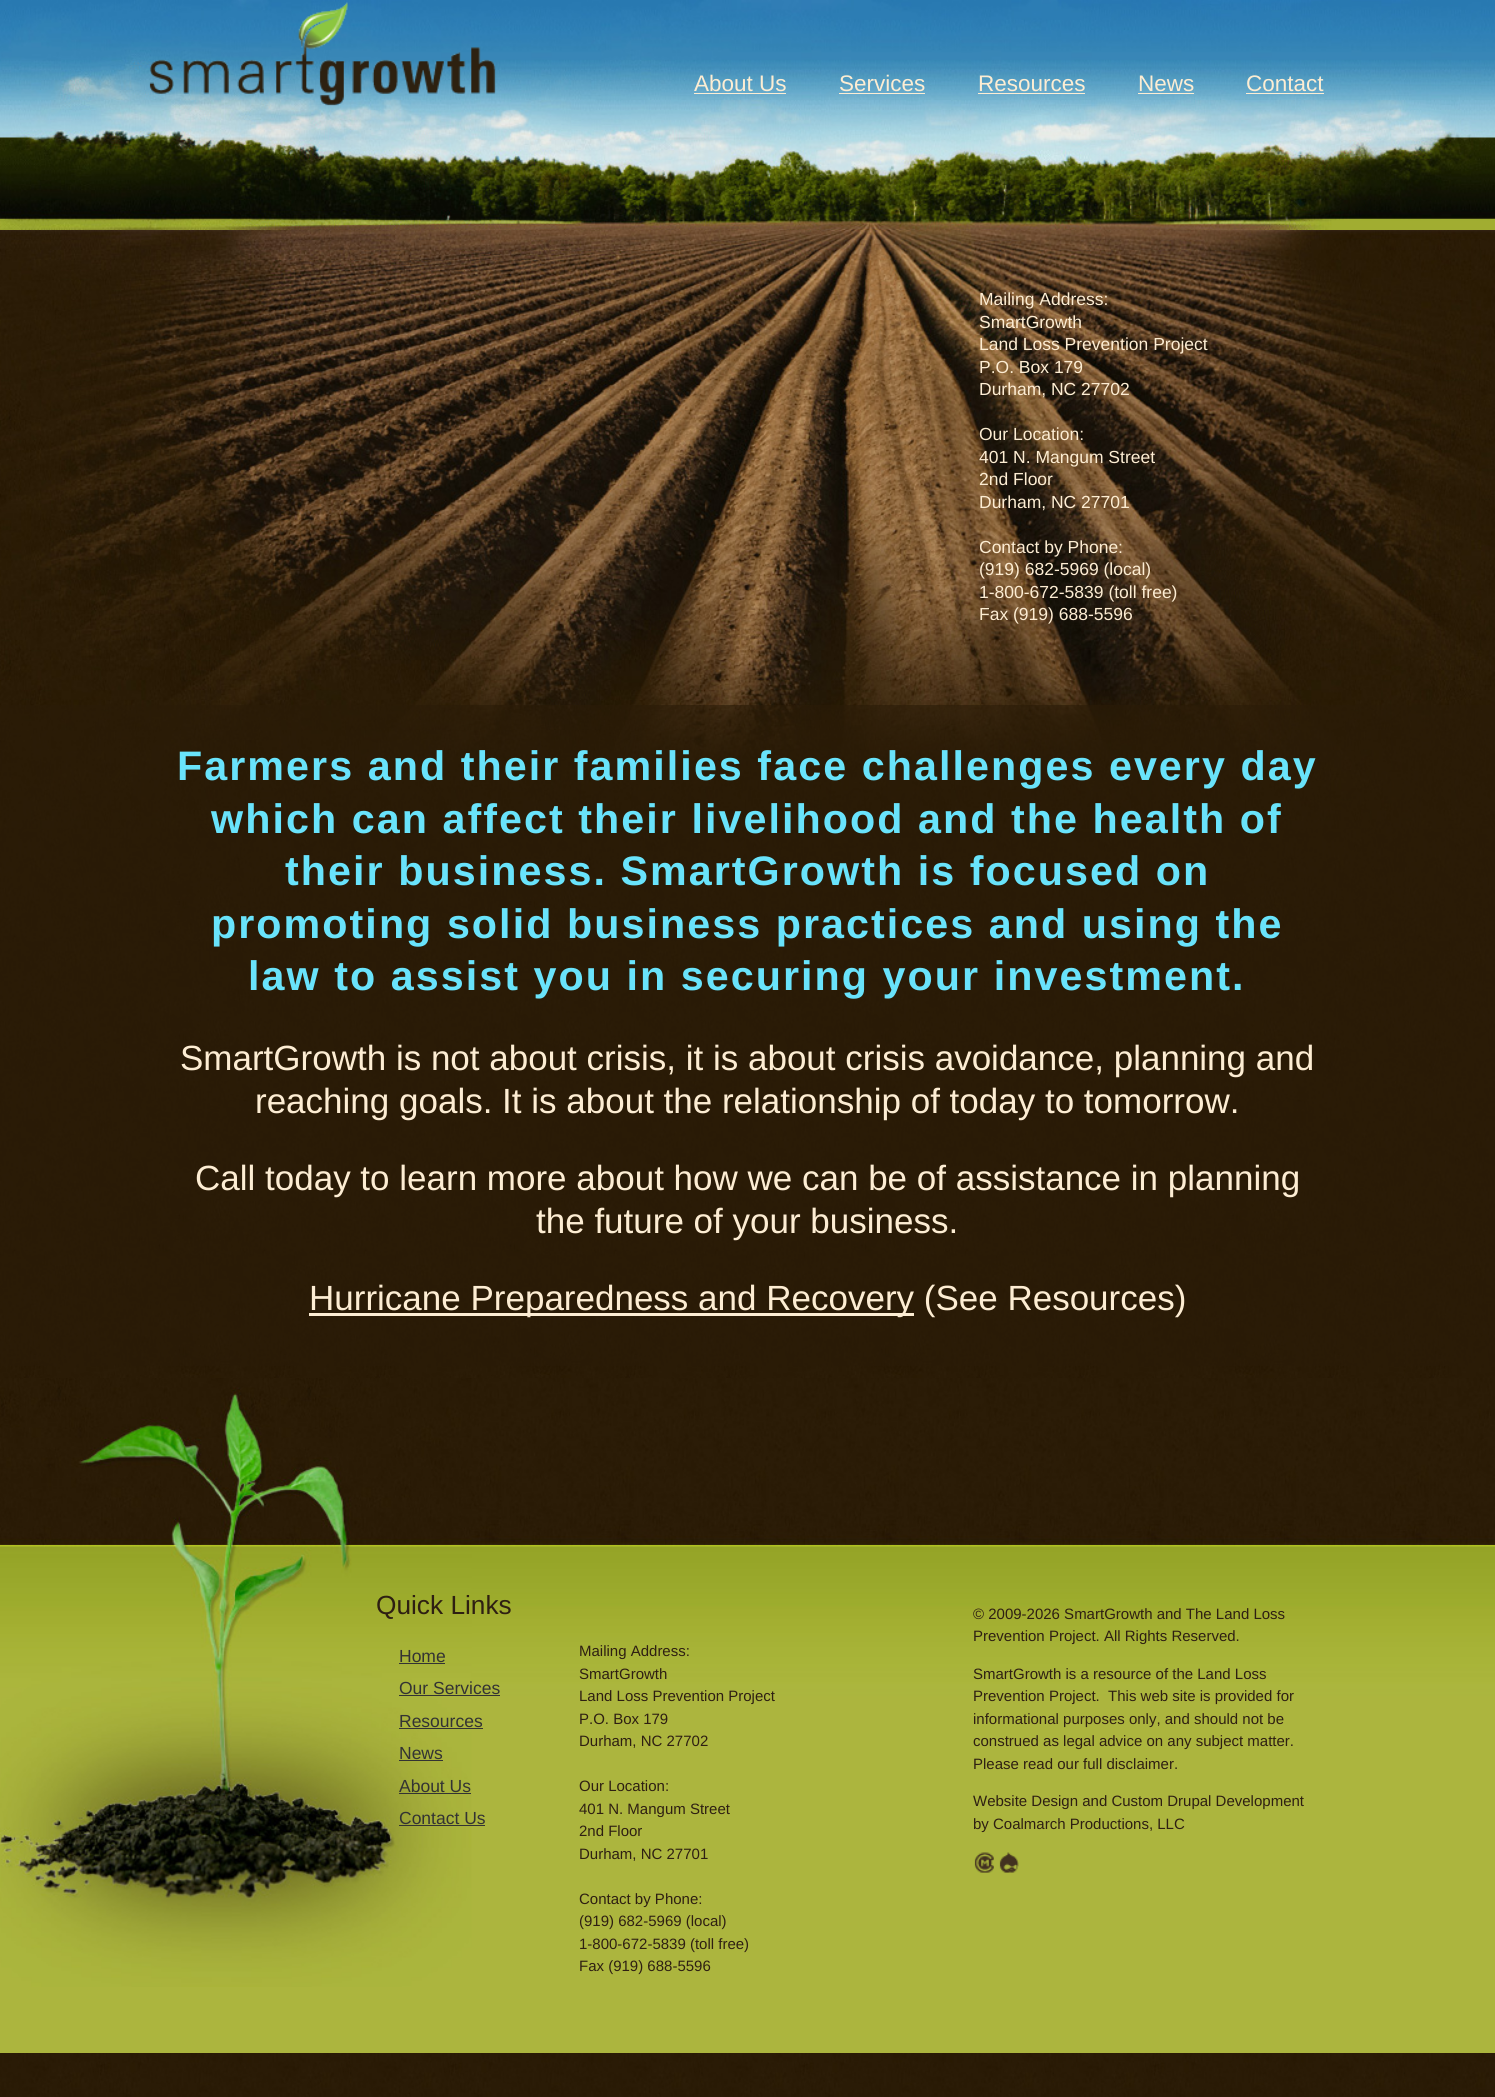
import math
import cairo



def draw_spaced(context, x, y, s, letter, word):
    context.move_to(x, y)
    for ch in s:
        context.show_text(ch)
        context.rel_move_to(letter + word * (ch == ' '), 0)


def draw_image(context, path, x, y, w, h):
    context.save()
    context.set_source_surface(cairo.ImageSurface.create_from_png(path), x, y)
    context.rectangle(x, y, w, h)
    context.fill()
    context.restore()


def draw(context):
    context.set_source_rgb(1, 1, 1)
    context.paint()
    draw_image(context, "images/1.png", 0, 828, 1495, 1269)
    draw_image(context, "images/2.png", 0, 0, 1495, 230)
    draw_image(context, "images/3.png", 149, 2, 347, 104)
    context.set_source_rgb(253 / 255, 237 / 255, 211 / 255)
    context.rectangle(694, 93, 92, 1)
    context.fill()
    context.rectangle(839, 93, 86, 1)
    context.fill()
    context.rectangle(978, 93, 107, 1)
    context.fill()
    context.rectangle(1138, 93, 56, 1)
    context.fill()
    context.rectangle(1246, 93, 78, 1)
    context.fill()
    draw_image(context, "images/4.png", 0, 230, 1495, 599)
    context.set_source_rgba(42 / 255, 28 / 255, 7 / 255, 0.6)
    context.rectangle(0, 705, 1495, 661)
    context.fill()
    context.set_source_rgb(253 / 255, 237 / 255, 211 / 255)
    context.rectangle(309, 1313, 605, 3)
    context.fill()
    context.set_source_rgb(172 / 255, 181 / 255, 62 / 255)
    context.rectangle(0, 1987, 1495, 66)
    context.fill()
    draw_image(context, "images/5.png", 0, 1378, 1495, 609)
    context.set_source_rgb(51 / 255, 51 / 255, 51 / 255)
    context.rectangle(399, 1663, 46, 1)
    context.fill()
    context.rectangle(399, 1695, 101, 1)
    context.fill()
    context.rectangle(399, 1728, 84, 1)
    context.fill()
    context.rectangle(399, 1760, 44, 1)
    context.fill()
    context.rectangle(399, 1793, 72, 1)
    context.fill()
    context.rectangle(399, 1825, 86, 1)
    context.fill()
    draw_image(context, "images/6.png", 974, 1852, 20, 21)
    draw_image(context, "images/7.png", 999, 1852, 20, 21)
    context.select_font_face("Liberation Sans")
    context.set_font_size(22.5)
    context.set_source_rgb(253 / 255, 237 / 255, 211 / 255)
    context.move_to(694, 91)
    context.show_text("About Us")
    context.move_to(839, 91)
    context.show_text("Services")
    context.move_to(978, 91)
    context.show_text("Resources")
    context.move_to(1138, 91)
    context.show_text("News")
    context.move_to(1246, 91)
    context.show_text("Contact")
    context.set_font_size(17.5)
    context.move_to(979, 305)
    context.show_text("Mailing Address:")
    context.move_to(979, 328)
    context.show_text("SmartGrowth")
    context.move_to(979, 350)
    context.show_text("Land Loss Prevention Project")
    context.move_to(979, 373)
    context.show_text("P.O. Box 179")
    context.move_to(979, 395)
    context.show_text("Durham, NC 27702")
    context.move_to(979, 440)
    context.show_text("Our Location:")
    context.move_to(979, 463)
    context.show_text("401 N. Mangum Street")
    context.move_to(979, 485)
    context.show_text("2nd Floor")
    context.move_to(979, 508)
    context.show_text("Durham, NC 27701")
    context.move_to(979, 553)
    context.show_text("Contact by Phone:")
    context.move_to(979, 575)
    context.show_text("(919) 682-5969 (local)")
    context.move_to(979, 598)
    context.show_text("1-800-672-5839 (toll free)")
    context.move_to(979, 620)
    context.show_text("Fax (919) 688-5596")
    context.select_font_face("Liberation Sans", cairo.FontSlant.NORMAL, cairo.FontWeight.BOLD)
    context.set_font_size(41.25)
    context.set_source_rgb(105 / 255, 227 / 255, 251 / 255)
    draw_spaced(context, 177, 780, "Farmers and their families face challenges every day", 2.05, 0)
    draw_spaced(context, 211, 833, "which can affect their livelihood and the health of", 2.05, 0)
    draw_spaced(context, 285, 885, "their business. SmartGrowth is focused on", 2.05, 0)
    draw_spaced(context, 211, 938, "promoting solid business practices and using the", 2.05, 0)
    draw_spaced(context, 248, 990, "law to assist you in securing your investment.", 2.05, 0)
    context.select_font_face("Liberation Sans")
    context.set_font_size(35)
    context.set_source_rgb(253 / 255, 237 / 255, 211 / 255)
    context.move_to(180, 1070)
    context.show_text("SmartGrowth is not about crisis, it is about crisis avoidance, planning and")
    context.move_to(255, 1113)
    context.show_text("reaching goals. It is about the relationship of today to tomorrow.")
    context.move_to(195, 1190)
    context.show_text("Call today to learn more about how we can be of assistance in planning")
    context.move_to(536, 1233)
    context.show_text("the future of your business.")
    context.move_to(309, 1310)
    context.show_text("Hurricane Preparedness and Recovery (See Resources)")
    context.set_font_size(26.25)
    context.set_source_rgb(46 / 255, 31 / 255, 18 / 255)
    context.move_to(376, 1614)
    context.show_text("Quick Links")
    context.set_font_size(17.5)
    context.set_source_rgb(51 / 255, 51 / 255, 51 / 255)
    context.move_to(399, 1662)
    context.show_text("Home")
    context.move_to(399, 1694)
    context.show_text("Our Services")
    context.move_to(399, 1727)
    context.show_text("Resources")
    context.move_to(399, 1759)
    context.show_text("News")
    context.move_to(399, 1792)
    context.show_text("About Us")
    context.move_to(399, 1824)
    context.show_text("Contact Us")
    context.set_font_size(15)
    context.set_source_rgb(46 / 255, 31 / 255, 18 / 255)
    context.move_to(579, 1656)
    context.show_text("Mailing Address:")
    context.move_to(579, 1679)
    context.show_text("SmartGrowth")
    context.move_to(579, 1701)
    context.show_text("Land Loss Prevention Project")
    context.move_to(579, 1724)
    context.show_text("P.O. Box 179")
    context.move_to(579, 1746)
    context.show_text("Durham, NC 27702")
    context.move_to(579, 1791)
    context.show_text("Our Location:")
    context.move_to(579, 1814)
    context.show_text("401 N. Mangum Street")
    context.move_to(579, 1836)
    context.show_text("2nd Floor")
    context.move_to(579, 1859)
    context.show_text("Durham, NC 27701")
    context.move_to(579, 1904)
    context.show_text("Contact by Phone:")
    context.move_to(579, 1926)
    context.show_text("(919) 682-5969 (local)")
    context.move_to(579, 1949)
    context.show_text("1-800-672-5839 (toll free)")
    context.move_to(579, 1971)
    context.show_text("Fax (919) 688-5596")
    context.move_to(973, 1619)
    context.show_text("© 2009-2026 SmartGrowth and The Land Loss")
    context.move_to(973, 1641)
    context.show_text("Prevention Project. All Rights Reserved.")
    context.move_to(973, 1679)
    context.show_text("SmartGrowth is a resource of the Land Loss")
    context.move_to(973, 1701)
    context.show_text("Prevention Project.  This web site is provided for")
    context.move_to(973, 1724)
    context.show_text("informational purposes only, and should not be")
    context.move_to(973, 1746)
    context.show_text("construed as legal advice on any subject matter.")
    context.move_to(973, 1769)
    context.show_text("Please read our full disclaimer.")
    context.move_to(973, 1806)
    context.show_text("Website Design and Custom Drupal Development")
    context.move_to(973, 1829)
    context.show_text("by Coalmarch Productions, LLC")


surface = cairo.ImageSurface(cairo.Format.RGB24, 1495, 2097)
context = cairo.Context(surface)
options = cairo.FontOptions()
options.set_hint_metrics(cairo.HintMetrics.OFF)
options.set_hint_style(cairo.HintStyle.NONE)
context.set_font_options(options)
context.set_miter_limit(4)
draw(context)
surface.write_to_png("out.png")
